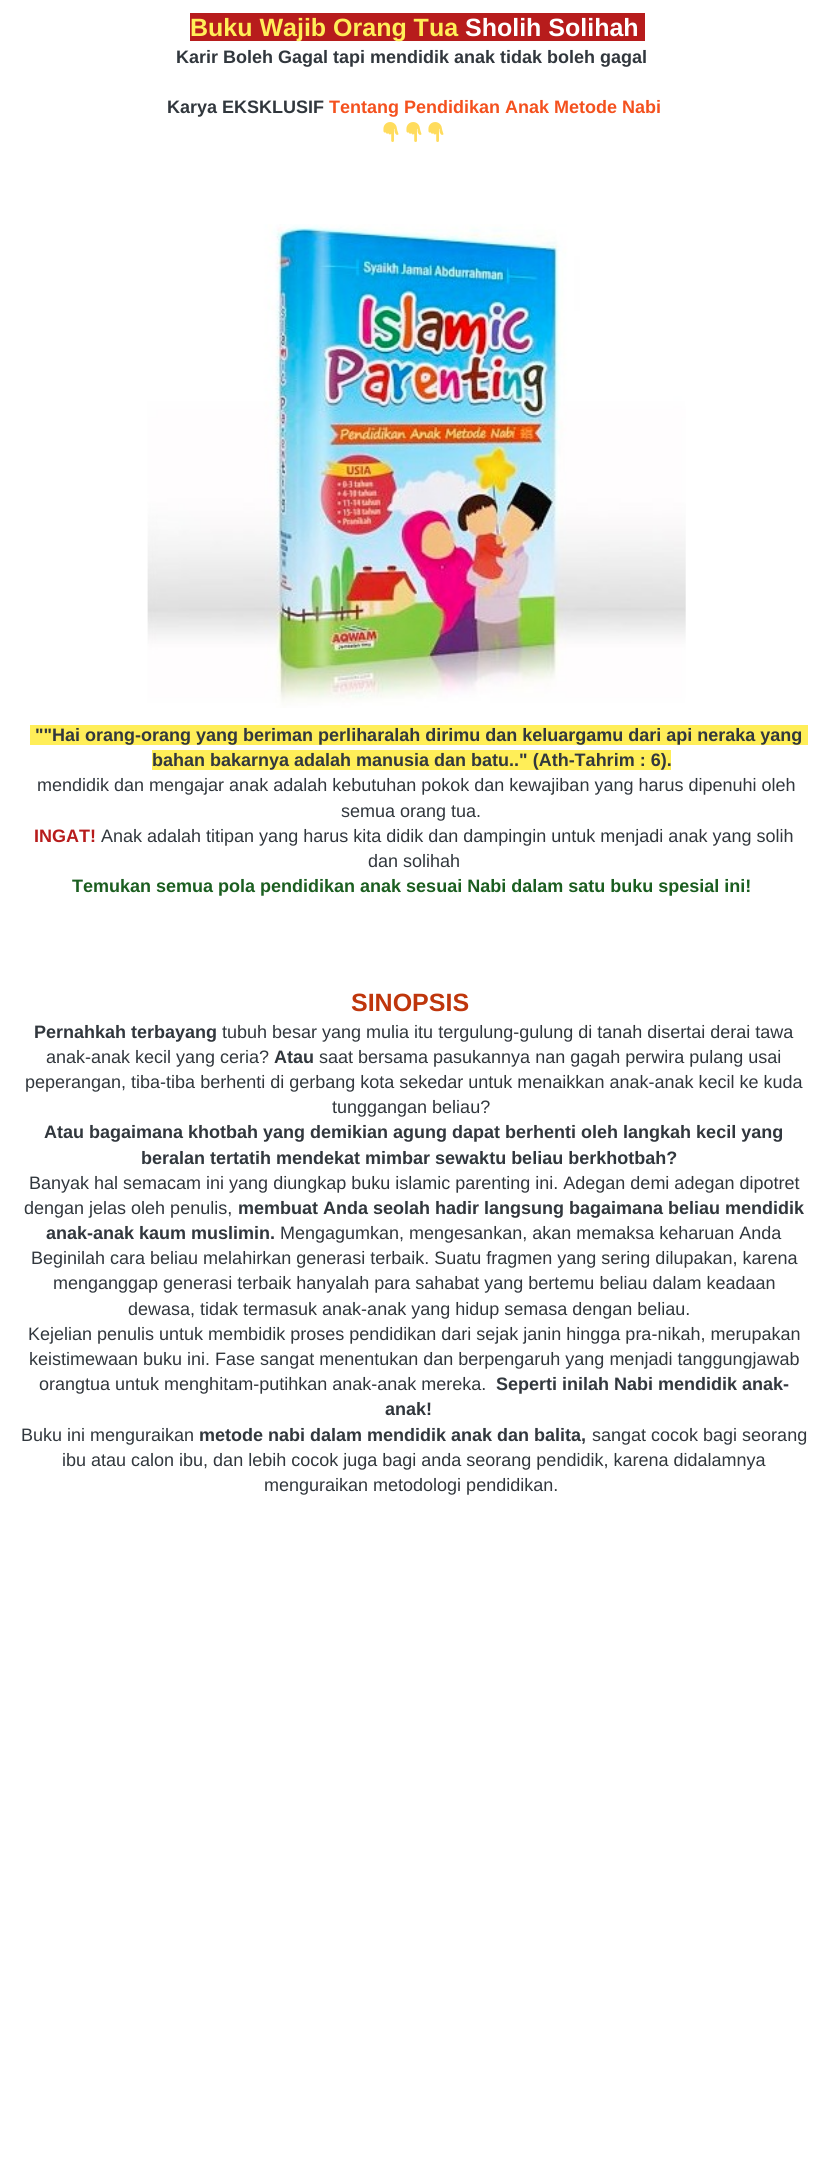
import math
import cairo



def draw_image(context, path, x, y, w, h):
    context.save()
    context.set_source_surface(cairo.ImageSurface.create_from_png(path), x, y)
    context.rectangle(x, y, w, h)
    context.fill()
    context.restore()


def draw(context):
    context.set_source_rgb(1, 1, 1)
    context.paint()
    context.set_source_rgb(183 / 255, 28 / 255, 28 / 255)
    context.rectangle(190, 13, 455, 28)
    context.fill()
    draw_image(context, "images/1.png", 383, 122, 16, 20)
    draw_image(context, "images/1.png", 406, 122, 16, 20)
    draw_image(context, "images/1.png", 428, 122, 16, 20)
    draw_image(context, "images/2.png", 147, 224, 539, 484)
    context.set_source_rgb(1, 238 / 255, 88 / 255)
    context.rectangle(30, 725, 778, 20)
    context.fill()
    context.rectangle(152, 750, 519, 20)
    context.fill()
    context.select_font_face("Liberation Sans", cairo.FontSlant.NORMAL, cairo.FontWeight.BOLD)
    context.set_font_size(25)
    context.move_to(190, 36)
    context.show_text("Buku Wajib Orang Tua")
    context.set_source_rgb(1, 1, 1)
    context.move_to(465, 36)
    context.show_text("Sholih Solihah")
    context.set_font_size(18)
    context.set_source_rgb(49 / 255, 55 / 255, 61 / 255)
    context.move_to(176, 63)
    context.show_text("Karir Boleh Gagal tapi mendidik anak tidak boleh gagal")
    context.move_to(167, 113)
    context.show_text("Karya EKSKLUSIF")
    context.set_source_rgb(244 / 255, 81 / 255, 30 / 255)
    context.move_to(329, 113)
    context.show_text("Tentang Pendidikan Anak Metode Nabi")
    context.set_source_rgb(49 / 255, 55 / 255, 61 / 255)
    context.move_to(35, 741)
    context.show_text("\"\"Hai orang-orang yang beriman perliharalah dirimu dan keluargamu dari api neraka yang")
    context.move_to(152, 766)
    context.show_text("bahan bakarnya adalah manusia dan batu..\" (Ath-Tahrim : 6).")
    context.select_font_face("Liberation Sans")
    context.move_to(37, 791)
    context.show_text("mendidik dan mengajar anak adalah kebutuhan pokok dan kewajiban yang harus dipenuhi oleh")
    context.move_to(341, 817)
    context.show_text("semua orang tua.")
    context.select_font_face("Liberation Sans", cairo.FontSlant.NORMAL, cairo.FontWeight.BOLD)
    context.set_source_rgb(183 / 255, 28 / 255, 28 / 255)
    context.move_to(34, 842)
    context.show_text("INGAT!")
    context.select_font_face("Liberation Sans")
    context.set_source_rgb(49 / 255, 55 / 255, 61 / 255)
    context.move_to(101, 842)
    context.show_text("Anak adalah titipan yang harus kita didik dan dampingin untuk menjadi anak yang solih")
    context.move_to(368, 867)
    context.show_text("dan solihah")
    context.select_font_face("Liberation Sans", cairo.FontSlant.NORMAL, cairo.FontWeight.BOLD)
    context.set_source_rgb(27 / 255, 94 / 255, 32 / 255)
    context.move_to(72, 892)
    context.show_text("Temukan semua pola pendidikan anak sesuai Nabi dalam satu buku spesial ini!")
    context.set_font_size(25)
    context.set_source_rgb(191 / 255, 54 / 255, 12 / 255)
    context.move_to(351, 1011)
    context.show_text("SINOPSIS")
    context.set_font_size(18)
    context.set_source_rgb(49 / 255, 55 / 255, 61 / 255)
    context.move_to(34, 1038)
    context.show_text("Pernahkah terbayang")
    context.select_font_face("Liberation Sans")
    context.move_to(222, 1038)
    context.show_text("tubuh besar yang mulia itu tergulung-gulung di tanah disertai derai tawa")
    context.move_to(46, 1063)
    context.show_text("anak-anak kecil yang ceria?")
    context.select_font_face("Liberation Sans", cairo.FontSlant.NORMAL, cairo.FontWeight.BOLD)
    context.move_to(274, 1063)
    context.show_text("Atau")
    context.select_font_face("Liberation Sans")
    context.move_to(319, 1063)
    context.show_text("saat bersama pasukannya nan gagah perwira pulang usai")
    context.move_to(25, 1088)
    context.show_text("peperangan, tiba-tiba berhenti di gerbang kota sekedar untuk menaikkan anak-anak kecil ke kuda")
    context.move_to(332, 1113)
    context.show_text("tunggangan beliau?")
    context.select_font_face("Liberation Sans", cairo.FontSlant.NORMAL, cairo.FontWeight.BOLD)
    context.move_to(44, 1138)
    context.show_text("Atau bagaimana khotbah yang demikian agung dapat berhenti oleh langkah kecil yang")
    context.move_to(141, 1164)
    context.show_text("beralan tertatih mendekat mimbar sewaktu beliau berkhotbah?")
    context.select_font_face("Liberation Sans")
    context.move_to(29, 1189)
    context.show_text("Banyak hal semacam ini yang diungkap buku islamic parenting ini. Adegan demi adegan dipotret")
    context.move_to(24, 1214)
    context.show_text("dengan jelas oleh penulis,")
    context.select_font_face("Liberation Sans", cairo.FontSlant.NORMAL, cairo.FontWeight.BOLD)
    context.move_to(238, 1214)
    context.show_text("membuat Anda seolah hadir langsung bagaimana beliau mendidik")
    context.move_to(46, 1239)
    context.show_text("anak-anak kaum muslimin.")
    context.select_font_face("Liberation Sans")
    context.move_to(280, 1239)
    context.show_text("Mengagumkan, mengesankan, akan memaksa keharuan Anda")
    context.move_to(31, 1264)
    context.show_text("Beginilah cara beliau melahirkan generasi terbaik. Suatu fragmen yang sering dilupakan, karena")
    context.move_to(53, 1289)
    context.show_text("menganggap generasi terbaik hanyalah para sahabat yang bertemu beliau dalam keadaan")
    context.move_to(128, 1315)
    context.show_text("dewasa, tidak termasuk anak-anak yang hidup semasa dengan beliau.")
    context.move_to(28, 1340)
    context.show_text("Kejelian penulis untuk membidik proses pendidikan dari sejak janin hingga pra-nikah, merupakan")
    context.move_to(29, 1365)
    context.show_text("keistimewaan buku ini. Fase sangat menentukan dan berpengaruh yang menjadi tanggungjawab")
    context.move_to(39, 1390)
    context.show_text("orangtua untuk menghitam-putihkan anak-anak mereka.")
    context.select_font_face("Liberation Sans", cairo.FontSlant.NORMAL, cairo.FontWeight.BOLD)
    context.move_to(496, 1390)
    context.show_text("Seperti inilah Nabi mendidik anak-")
    context.move_to(385, 1415)
    context.show_text("anak!")
    context.select_font_face("Liberation Sans")
    context.move_to(21, 1441)
    context.show_text("Buku ini menguraikan")
    context.select_font_face("Liberation Sans", cairo.FontSlant.NORMAL, cairo.FontWeight.BOLD)
    context.move_to(199, 1441)
    context.show_text("metode nabi dalam mendidik anak dan balita,")
    context.select_font_face("Liberation Sans")
    context.move_to(592, 1441)
    context.show_text("sangat cocok bagi seorang")
    context.move_to(62, 1466)
    context.show_text("ibu atau calon ibu, dan lebih cocok juga bagi anda seorang pendidik, karena didalamnya")
    context.move_to(264, 1491)
    context.show_text("menguraikan metodologi pendidikan.")


surface = cairo.ImageSurface(cairo.Format.RGB24, 827, 2166)
context = cairo.Context(surface)
options = cairo.FontOptions()
options.set_hint_metrics(cairo.HintMetrics.OFF)
options.set_hint_style(cairo.HintStyle.NONE)
context.set_font_options(options)
context.set_miter_limit(4)
draw(context)
surface.write_to_png("out.png")
